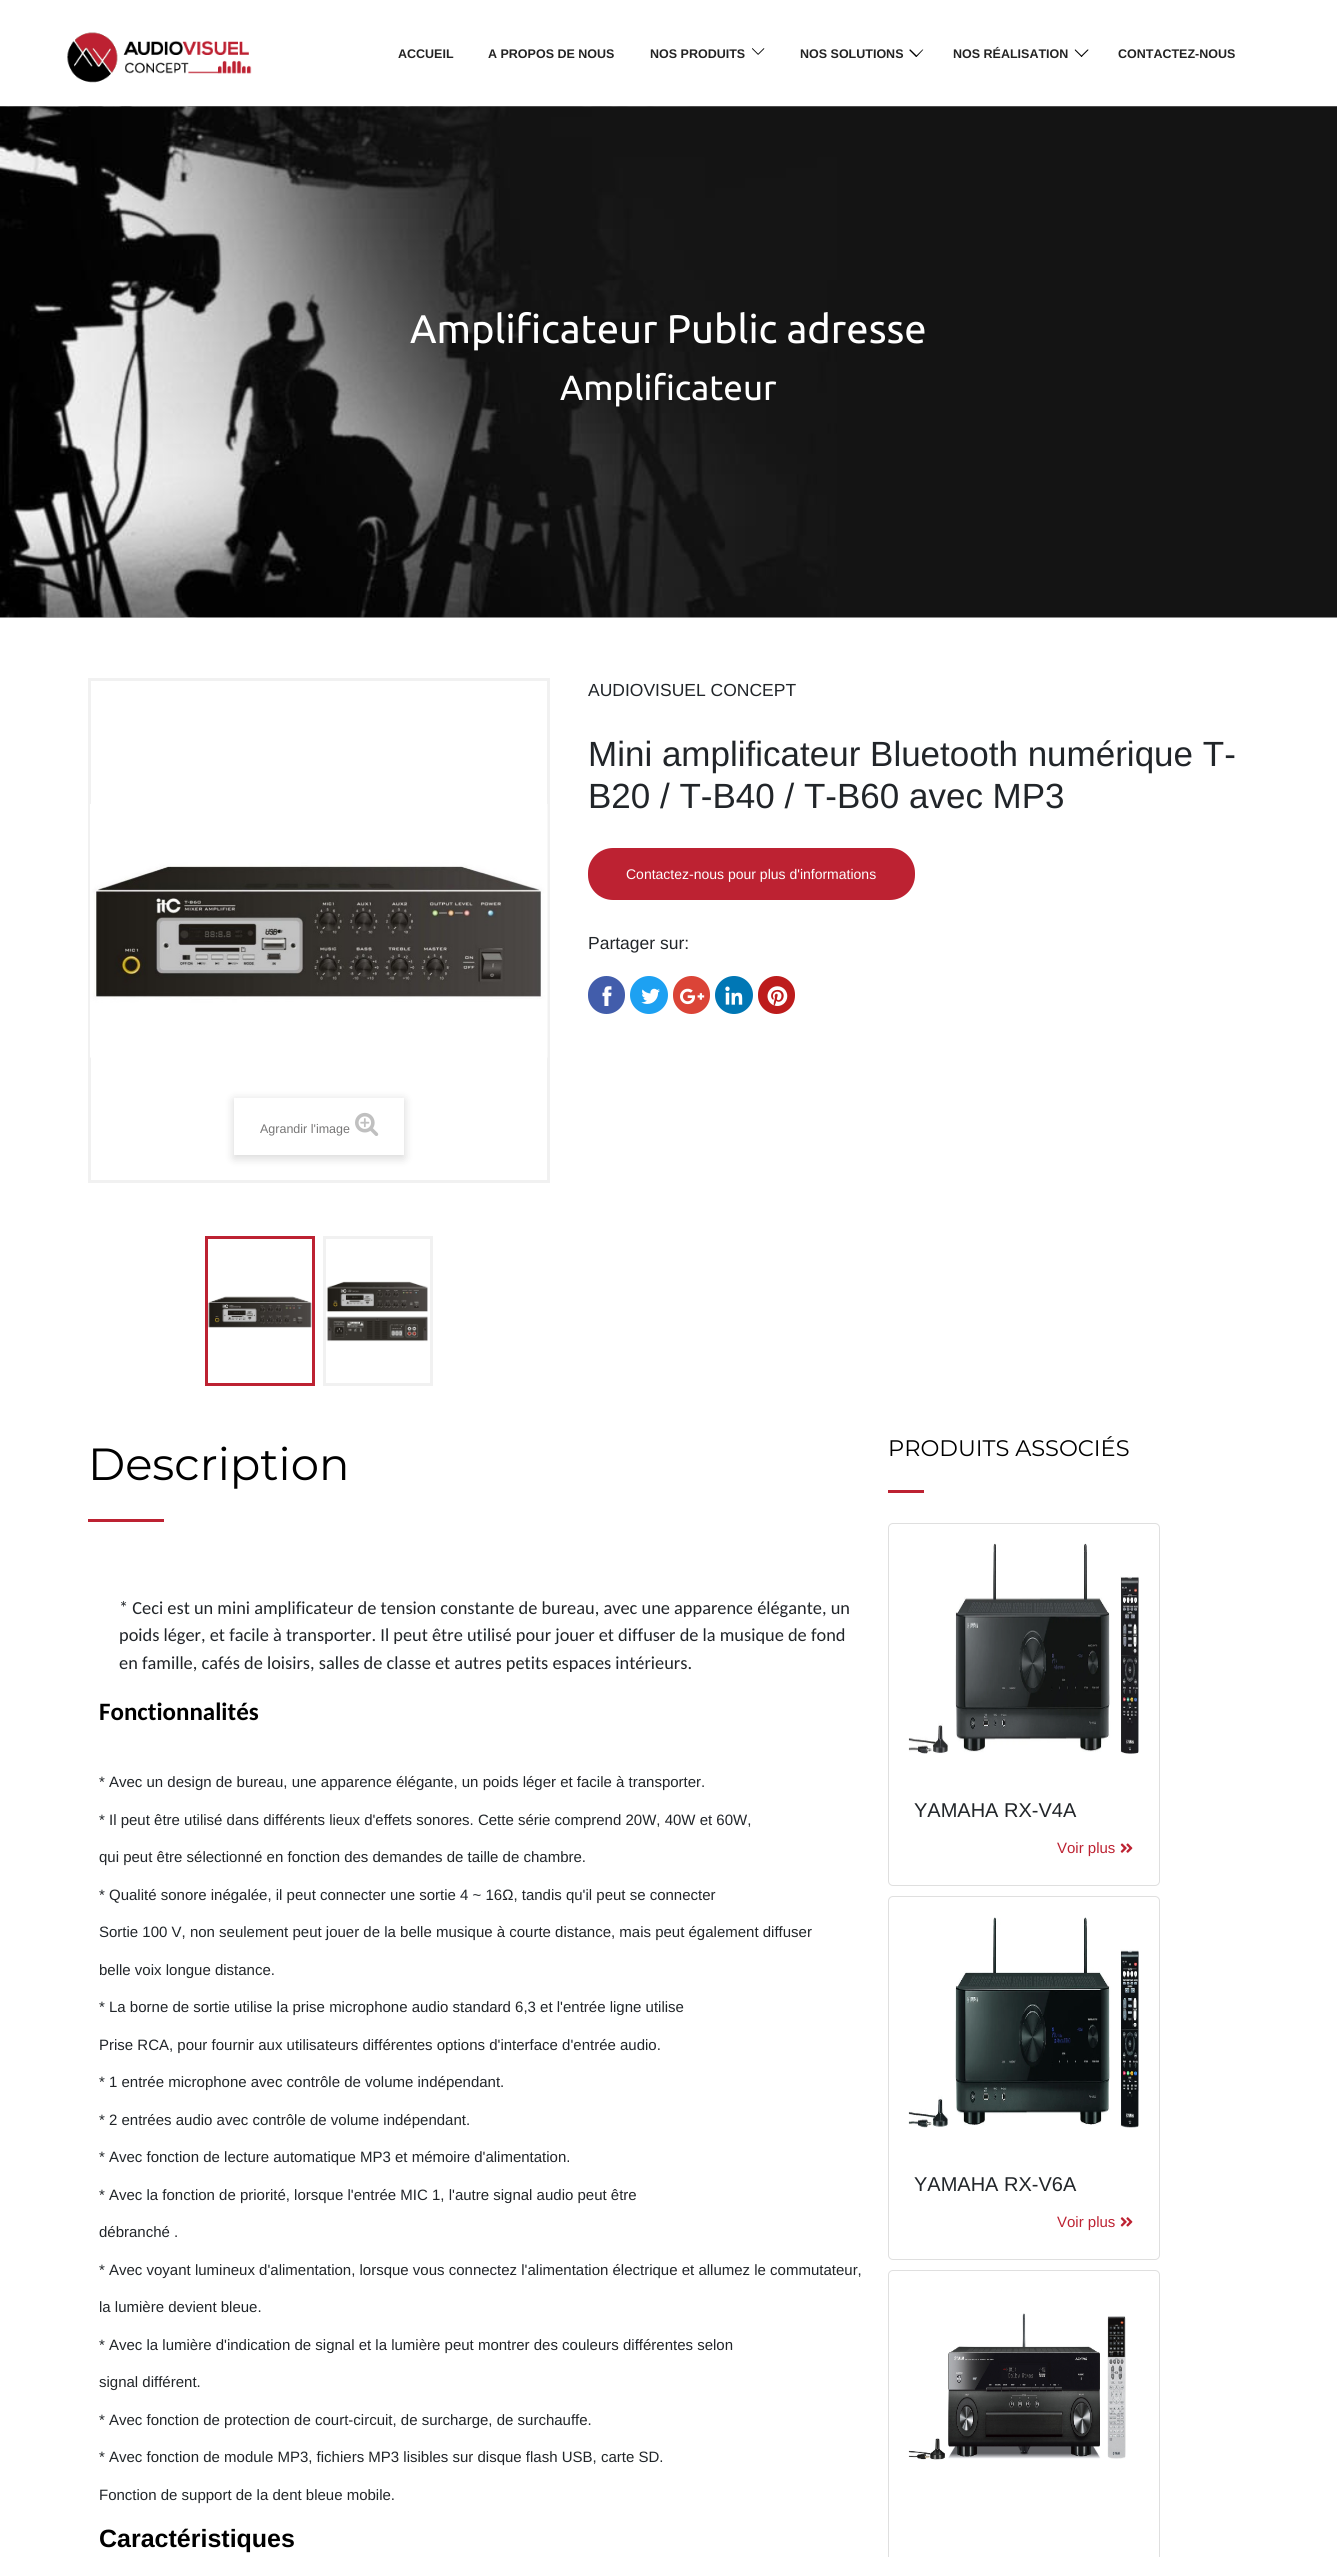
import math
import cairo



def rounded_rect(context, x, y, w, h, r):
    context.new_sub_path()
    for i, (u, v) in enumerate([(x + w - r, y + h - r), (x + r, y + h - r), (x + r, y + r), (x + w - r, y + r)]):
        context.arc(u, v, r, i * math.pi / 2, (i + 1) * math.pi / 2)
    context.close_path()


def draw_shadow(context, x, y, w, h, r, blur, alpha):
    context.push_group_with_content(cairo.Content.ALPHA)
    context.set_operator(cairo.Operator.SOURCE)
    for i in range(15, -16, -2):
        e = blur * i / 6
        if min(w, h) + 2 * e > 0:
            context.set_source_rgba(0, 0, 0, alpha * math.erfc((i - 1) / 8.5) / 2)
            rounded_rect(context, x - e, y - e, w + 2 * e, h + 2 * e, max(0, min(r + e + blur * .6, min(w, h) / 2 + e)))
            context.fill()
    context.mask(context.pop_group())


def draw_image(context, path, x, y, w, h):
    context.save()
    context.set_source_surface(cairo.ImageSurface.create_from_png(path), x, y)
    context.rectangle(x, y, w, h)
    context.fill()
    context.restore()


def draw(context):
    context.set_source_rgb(1, 1, 1)
    context.paint()
    draw_image(context, "images/1.png", 67, 32, 185, 51)
    draw_image(context, "images/2.png", 752, 48, 13, 7)
    context.set_source_rgb(0, 0, 0)
    context.new_path()
    context.move_to(916, 56)
    context.line_to(922.5, 49.5)
    context.curve_to(923, 49.5, 923.5, 49.5, 923, 50)
    context.line_to(917, 56.5)
    context.curve_to(916.5, 57, 915.5, 56.5, 916, 56)
    context.close_path()
    context.fill()
    context.new_path()
    context.move_to(910.5, 49.5)
    context.line_to(917, 56)
    context.curve_to(917, 56.5, 916.5, 57, 916, 57)
    context.line_to(909.5, 50.5)
    context.curve_to(909, 50, 910, 49, 910.5, 49.5)
    context.close_path()
    context.fill()
    context.new_path()
    context.move_to(1081, 56)
    context.line_to(1087.5, 49.5)
    context.curve_to(1088, 49.5, 1088.5, 49.5, 1088.5, 50)
    context.line_to(1082, 56.5)
    context.curve_to(1081.5, 57, 1080.5, 56.5, 1081, 56)
    context.close_path()
    context.fill()
    context.new_path()
    context.move_to(1075.5, 49.5)
    context.line_to(1082, 56)
    context.curve_to(1082.5, 56.5, 1082, 57, 1081.5, 57)
    context.line_to(1075, 50.5)
    context.curve_to(1074.5, 50, 1075, 49, 1075.5, 49.5)
    context.close_path()
    context.fill()
    draw_image(context, "images/3.png", 0, 106, 1337, 512)
    context.set_source_rgb(189 / 255, 34 / 255, 50 / 255)
    rounded_rect(context, 588, 848, 327, 52, 25)
    context.fill()
    context.set_source_rgb(66 / 255, 93 / 255, 171 / 255)
    rounded_rect(context, 588, 976, 37, 38, 18.5)
    context.fill()
    draw_image(context, "images/4.png", 602, 986, 10, 20)
    context.set_source_rgb(29 / 255, 161 / 255, 242 / 255)
    context.arc(649, 995, 19, 0, 2 * math.pi)
    context.fill()
    draw_image(context, "images/5.png", 641, 988, 19, 16)
    context.set_source_rgb(219 / 255, 68 / 255, 55 / 255)
    rounded_rect(context, 673, 976, 37, 38, 18.5)
    context.fill()
    draw_image(context, "images/6.png", 680, 988, 25, 17)
    context.set_source_rgb(0, 119 / 255, 181 / 255)
    context.arc(734, 995, 19, 0, 2 * math.pi)
    context.fill()
    draw_image(context, "images/7.png", 725, 986, 18, 19)
    context.set_source_rgb(189 / 255, 28 / 255, 28 / 255)
    rounded_rect(context, 758, 976, 37, 38, 18.5)
    context.fill()
    draw_image(context, "images/8.png", 767, 986, 21, 20)
    context.rectangle(89.5, 679.5, 459, 502)
    context.set_source_rgb(241 / 255, 241 / 255, 241 / 255)
    context.set_line_width(3)
    context.stroke()
    draw_image(context, "images/9.png", 90, 804, 458, 254)
    context.set_source_rgb(0, 0, 0)
    draw_shadow(context, 234, 1100, 170, 58, 0, 5, 0.16)
    context.set_source_rgb(1, 1, 1)
    context.rectangle(234, 1098, 170, 57)
    context.fill()
    draw_image(context, "images/10.png", 355, 1112, 24, 24)
    draw_image(context, "images/11.png", 208, 1296, 104, 32)
    context.rectangle(206.5, 1237.5, 107, 147)
    context.set_source_rgb(189 / 255, 34 / 255, 50 / 255)
    context.stroke()
    draw_image(context, "images/12.png", 326, 1281, 102, 61)
    context.rectangle(324.5, 1237.5, 107, 147)
    context.set_source_rgb(241 / 255, 241 / 255, 241 / 255)
    context.stroke()
    context.set_source_rgb(189 / 255, 34 / 255, 50 / 255)
    context.rectangle(88, 1519, 76, 3)
    context.fill()
    context.rectangle(888, 1490, 36, 3)
    context.fill()
    rounded_rect(context, 888.5, 1523.5, 271, 362, 4.5)
    context.set_source_rgb(223 / 255, 223 / 255, 223 / 255)
    context.set_line_width(1)
    context.stroke()
    draw_image(context, "images/13.png", 908, 1543, 231, 211)
    draw_image(context, "images/14.png", 1120, 1843, 13, 10)
    rounded_rect(context, 888.5, 1896.5, 271, 363, 4.5)
    context.stroke()
    draw_image(context, "images/15.png", 908, 1917, 231, 211)
    draw_image(context, "images/16.png", 1120, 2217, 13, 10)
    rounded_rect(context, 888.5, 2270.5, 271, 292, 4.5)
    context.stroke()
    draw_image(context, "images/17.png", 908, 2313, 218, 147)
    context.select_font_face("Liberation Sans", cairo.FontSlant.NORMAL, cairo.FontWeight.BOLD)
    context.set_font_size(12.5)
    context.set_source_rgb(35 / 255, 35 / 255, 35 / 255)
    context.move_to(398, 58)
    context.show_text("ACCUEIL")
    context.move_to(488, 58)
    context.show_text("A PROPOS DE NOUS")
    context.move_to(650, 58)
    context.show_text("NOS PRODUITS")
    context.move_to(800, 58)
    context.show_text("NOS SOLUTIONS")
    context.move_to(953, 58)
    context.show_text("NOS RÉALISATION")
    context.move_to(1118, 58)
    context.show_text("CONTACTEZ-NOUS")
    context.select_font_face("Ubuntu")
    context.set_font_size(40)
    context.set_source_rgb(1, 1, 1)
    context.move_to(410, 343)
    context.show_text("Amplificateur Public adresse")
    context.set_font_size(35)
    context.move_to(560, 400)
    context.show_text("Amplificateur")
    context.select_font_face("Liberation Sans")
    context.set_font_size(17.5)
    context.set_source_rgb(33 / 255, 37 / 255, 41 / 255)
    context.move_to(588, 696)
    context.show_text("AUDIOVISUEL CONCEPT")
    context.set_font_size(35)
    context.move_to(588, 766)
    context.show_text("Mini amplificateur Bluetooth numérique T-")
    context.move_to(588, 808)
    context.show_text("B20 / T-B40 / T-B60 avec MP3")
    context.set_font_size(14)
    context.set_source_rgb(1, 1, 1)
    context.move_to(626, 879)
    context.show_text("Contactez-nous pour plus d'informations")
    context.set_font_size(17.5)
    context.set_source_rgb(33 / 255, 37 / 255, 41 / 255)
    context.move_to(588, 949)
    context.show_text("Partager sur:")
    context.set_font_size(12.5)
    context.set_source_rgb(119 / 255, 118 / 255, 118 / 255)
    context.move_to(260, 1133)
    context.show_text("Agrandir l'image")
    context.select_font_face("Montserrat")
    context.set_font_size(45)
    context.set_source_rgb(0, 0, 0)
    context.move_to(88, 1480)
    context.show_text("Description")
    context.select_font_face("Carlito")
    context.set_font_size(18.35)
    context.set_source_rgb(33 / 255, 37 / 255, 41 / 255)
    context.move_to(119, 1614)
    context.show_text("* Ceci est un mini amplificateur de tension constante de bureau, avec une apparence élégante, un")
    context.move_to(119, 1641)
    context.show_text("poids léger, et facile à transporter. Il peut être utilisé pour jouer et diffuser de la musique de fond")
    context.move_to(119, 1669)
    context.show_text("en famille, cafés de loisirs, salles de classe et autres petits espaces intérieurs.")
    context.select_font_face("Carlito", cairo.FontSlant.NORMAL, cairo.FontWeight.BOLD)
    context.set_font_size(25)
    context.set_source_rgb(0, 0, 0)
    context.move_to(99, 1720)
    context.show_text("Fonctionnalités")
    context.select_font_face("Liberation Sans")
    context.set_font_size(15)
    context.set_source_rgb(33 / 255, 37 / 255, 41 / 255)
    context.move_to(99, 1787)
    context.show_text("* Avec un design de bureau, une apparence élégante, un poids léger et facile à transporter.")
    context.move_to(99, 1825)
    context.show_text("* Il peut être utilisé dans différents lieux d'effets sonores. Cette série comprend 20W, 40W et 60W,")
    context.move_to(99, 1862)
    context.show_text("qui peut être sélectionné en fonction des demandes de taille de chambre.")
    context.move_to(99, 1900)
    context.show_text("* Qualité sonore inégalée, il peut connecter une sortie 4 ~ 16Ω, tandis qu'il peut se connecter")
    context.move_to(99, 1937)
    context.show_text("Sortie 100 V, non seulement peut jouer de la belle musique à courte distance, mais peut également diffuser")
    context.move_to(99, 1975)
    context.show_text("belle voix longue distance.")
    context.move_to(99, 2012)
    context.show_text("* La borne de sortie utilise la prise microphone audio standard 6,3 et l'entrée ligne utilise")
    context.move_to(99, 2050)
    context.show_text("Prise RCA, pour fournir aux utilisateurs différentes options d'interface d'entrée audio.")
    context.move_to(99, 2087)
    context.show_text("* 1 entrée microphone avec contrôle de volume indépendant.")
    context.move_to(99, 2125)
    context.show_text("* 2 entrées audio avec contrôle de volume indépendant.")
    context.move_to(99, 2162)
    context.show_text("* Avec fonction de lecture automatique MP3 et mémoire d'alimentation.")
    context.move_to(99, 2200)
    context.show_text("* Avec la fonction de priorité, lorsque l'entrée MIC 1, l'autre signal audio peut être")
    context.move_to(99, 2237)
    context.show_text("débranché .")
    context.move_to(99, 2275)
    context.show_text("* Avec voyant lumineux d'alimentation, lorsque vous connectez l'alimentation électrique et allumez le commutateur,")
    context.move_to(99, 2312)
    context.show_text("la lumière devient bleue.")
    context.move_to(99, 2350)
    context.show_text("* Avec la lumière d'indication de signal et la lumière peut montrer des couleurs différentes selon")
    context.move_to(99, 2387)
    context.show_text("signal différent.")
    context.move_to(99, 2425)
    context.show_text("* Avec fonction de protection de court-circuit, de surcharge, de surchauffe.")
    context.move_to(99, 2462)
    context.show_text("* Avec fonction de module MP3, fichiers MP3 lisibles sur disque flash USB, carte SD.")
    context.move_to(99, 2500)
    context.show_text("Fonction de support de la dent bleue mobile.")
    context.select_font_face("Liberation Sans", cairo.FontSlant.NORMAL, cairo.FontWeight.BOLD)
    context.set_font_size(25)
    context.set_source_rgb(0, 0, 0)
    context.move_to(99, 2547)
    context.show_text("Caractéristiques")
    context.select_font_face("Montserrat")
    context.set_font_size(22.5)
    context.move_to(888, 1456)
    context.show_text("PRODUITS ASSOCIÉS")
    context.select_font_face("Liberation Sans")
    context.set_font_size(20)
    context.set_source_rgb(33 / 255, 37 / 255, 41 / 255)
    context.move_to(914, 1817)
    context.show_text("YAMAHA RX-V4A")
    context.set_font_size(15)
    context.set_source_rgb(189 / 255, 34 / 255, 50 / 255)
    context.move_to(1057, 1853)
    context.show_text("Voir plus")
    context.set_font_size(20)
    context.set_source_rgb(33 / 255, 37 / 255, 41 / 255)
    context.move_to(914, 2191)
    context.show_text("YAMAHA RX-V6A")
    context.set_font_size(15)
    context.set_source_rgb(189 / 255, 34 / 255, 50 / 255)
    context.move_to(1057, 2227)
    context.show_text("Voir plus")


surface = cairo.ImageSurface(cairo.Format.RGB24, 1337, 2557)
context = cairo.Context(surface)
options = cairo.FontOptions()
options.set_hint_metrics(cairo.HintMetrics.OFF)
options.set_hint_style(cairo.HintStyle.NONE)
context.set_font_options(options)
context.set_miter_limit(4)
draw(context)
surface.write_to_png("out.png")
